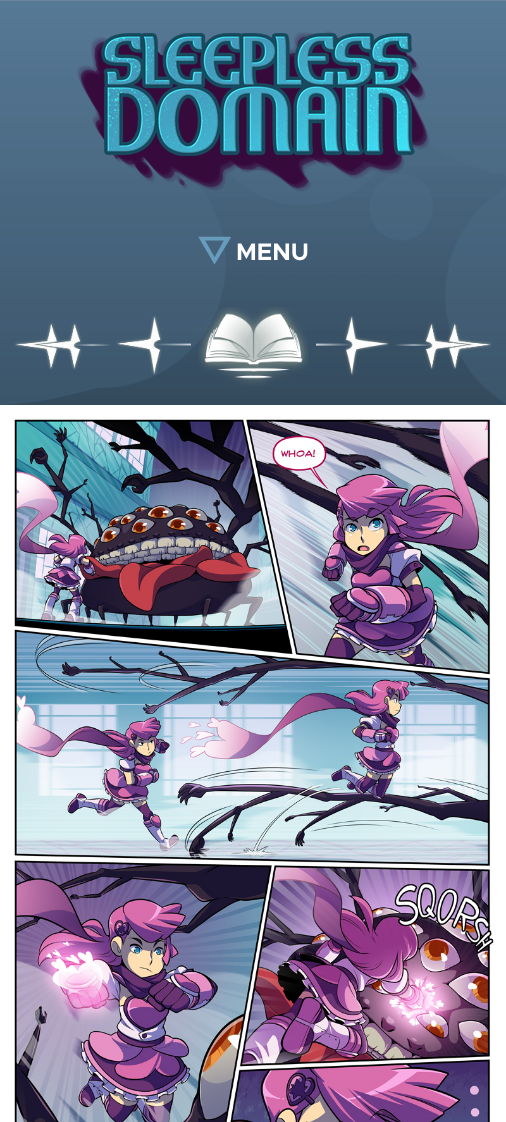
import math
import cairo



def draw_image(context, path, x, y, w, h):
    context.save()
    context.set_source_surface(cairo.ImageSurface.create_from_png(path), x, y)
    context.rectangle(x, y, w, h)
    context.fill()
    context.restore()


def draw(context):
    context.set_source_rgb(1, 1, 1)
    context.paint()
    draw_image(context, "images/1.png", 0, 0, 506, 405)
    draw_image(context, "images/2.png", 77, 31, 353, 161)
    draw_image(context, "images/3.png", 198, 236, 33, 29)
    draw_image(context, "images/4.png", 14, 322, 97, 48)
    draw_image(context, "images/5.png", 116, 316, 75, 59)
    draw_image(context, "images/6.png", 198, 307, 111, 79)
    draw_image(context, "images/7.png", 316, 315, 73, 61)
    draw_image(context, "images/8.png", 395, 322, 97, 48)
    draw_image(context, "images/9.png", 0, 405, 506, 717)
    context.select_font_face("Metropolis", cairo.FontSlant.NORMAL, cairo.FontWeight.BOLD)
    context.set_font_size(24)
    context.set_source_rgb(1, 1, 1)
    context.move_to(236, 260)
    context.show_text("MENU")


surface = cairo.ImageSurface(cairo.Format.RGB24, 506, 1122)
context = cairo.Context(surface)
options = cairo.FontOptions()
options.set_hint_metrics(cairo.HintMetrics.OFF)
options.set_hint_style(cairo.HintStyle.NONE)
context.set_font_options(options)
context.set_miter_limit(4)
draw(context)
surface.write_to_png("out.png")
